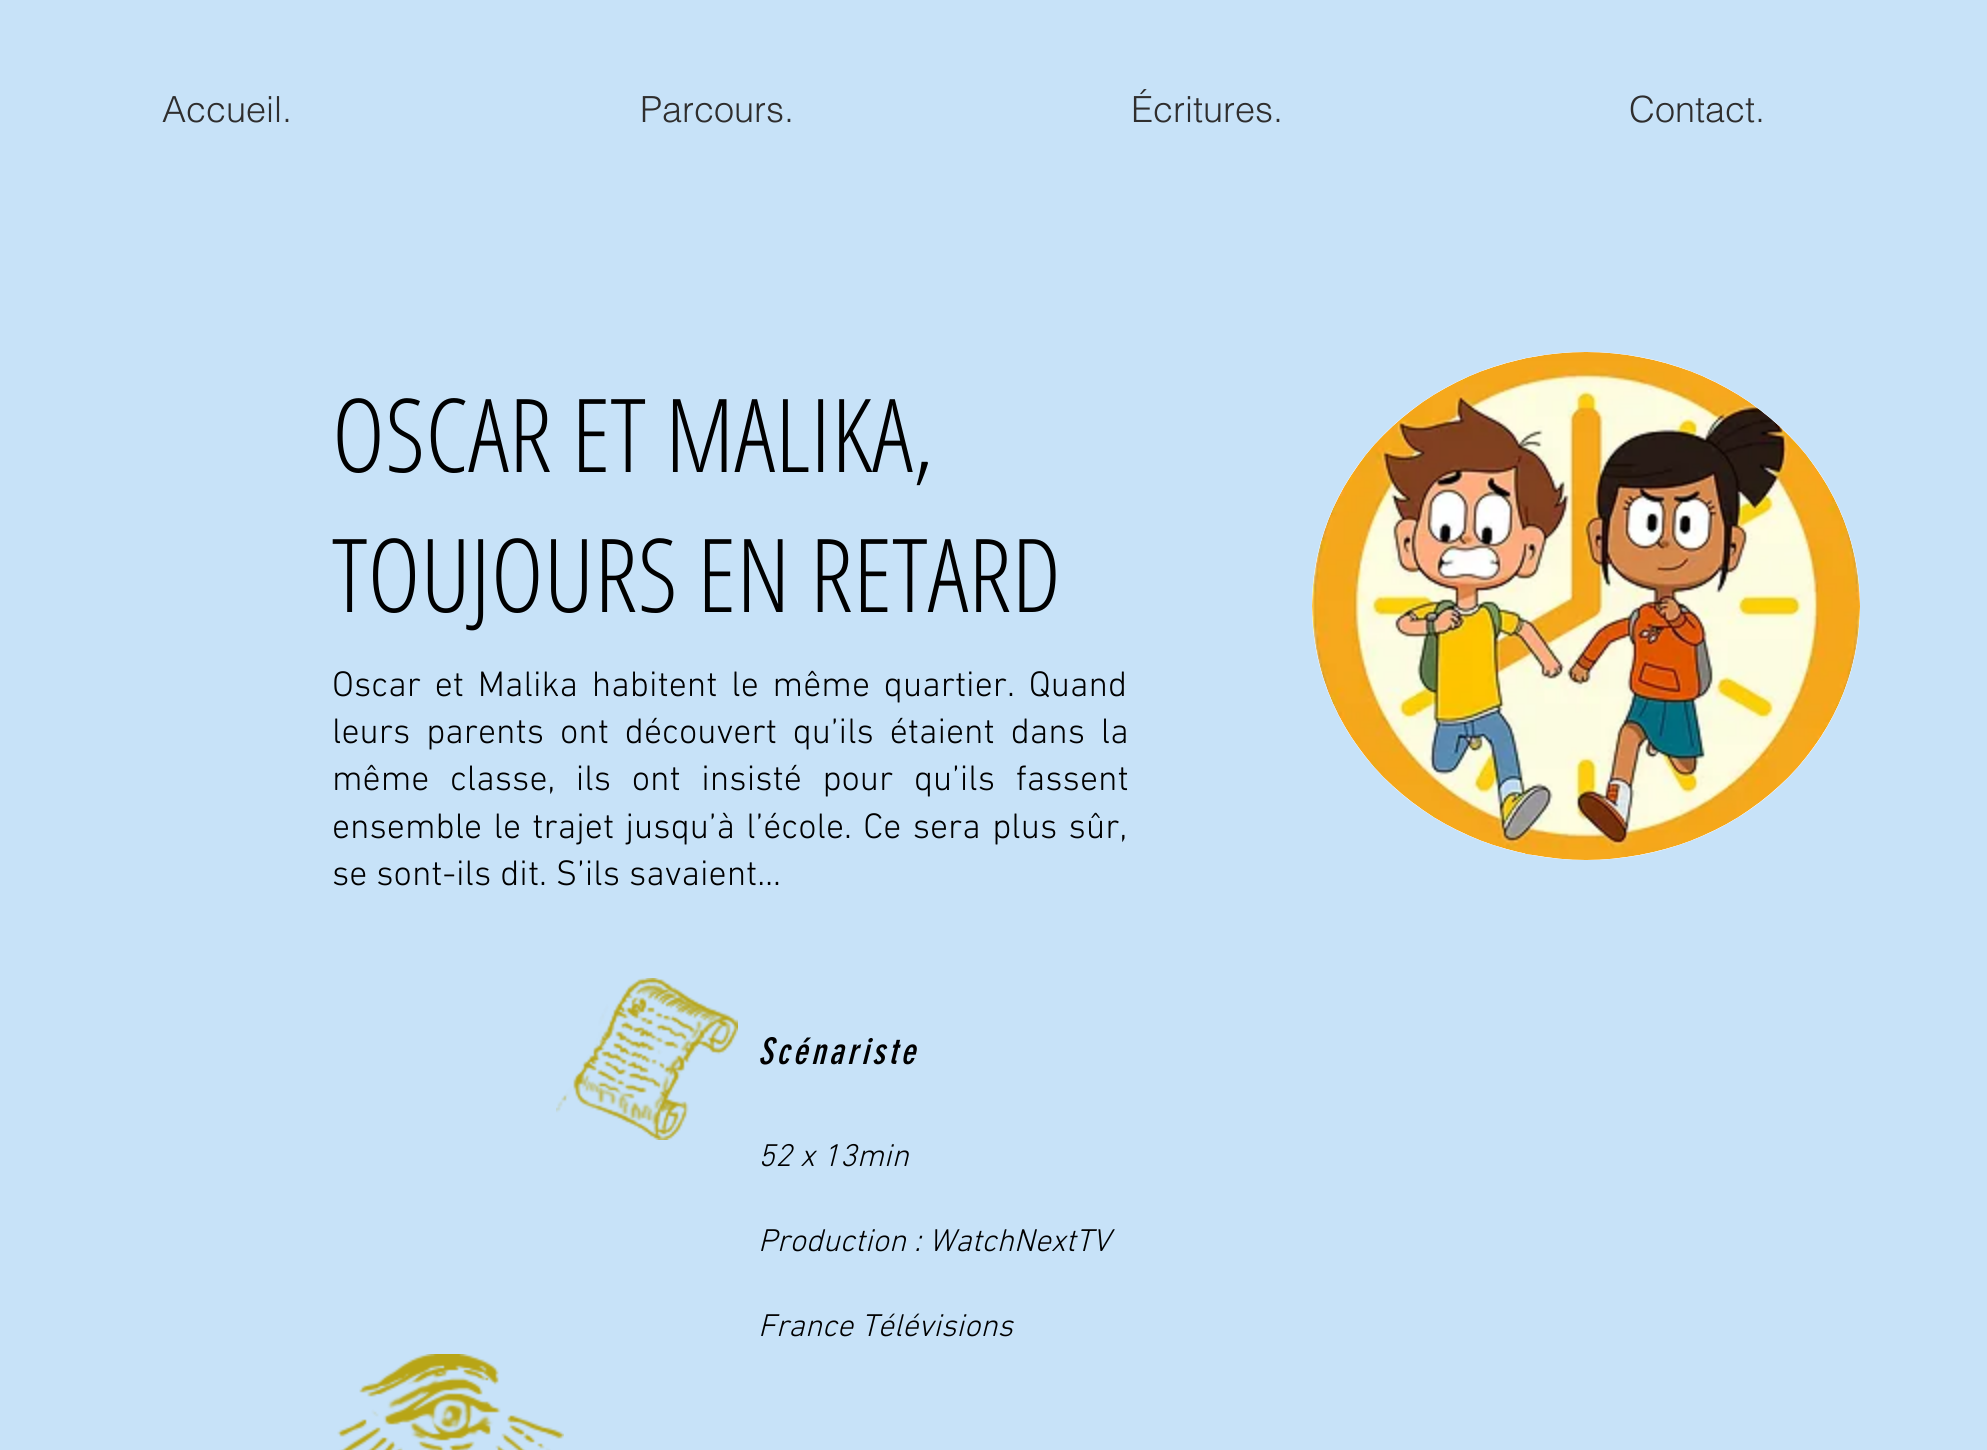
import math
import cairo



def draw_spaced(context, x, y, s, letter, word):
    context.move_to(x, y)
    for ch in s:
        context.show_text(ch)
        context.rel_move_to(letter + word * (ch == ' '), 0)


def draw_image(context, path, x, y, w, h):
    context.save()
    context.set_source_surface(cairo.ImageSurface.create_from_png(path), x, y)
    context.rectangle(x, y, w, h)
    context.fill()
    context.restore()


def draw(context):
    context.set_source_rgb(199 / 255, 226 / 255, 248 / 255)
    context.paint()
    context.set_source_rgb(1, 1, 1)
    context.new_path()
    context.move_to(1586, 352)
    context.curve_to(1737.5, 352, 1860, 465.5, 1860, 606)
    context.curve_to(1860, 746.5, 1737.5, 860, 1586, 860)
    context.curve_to(1434.5, 860, 1312, 746.5, 1312, 606)
    context.curve_to(1312, 465.5, 1434.5, 352, 1586, 352)
    context.close_path()
    context.fill()
    draw_image(context, "images/1.png", 1312, 352, 548, 508)
    draw_image(context, "images/2.png", 556, 978, 182, 162)
    draw_image(context, "images/3.png", 337, 1354, 227, 96)
    context.select_font_face("helvetica Light")
    context.set_font_size(36)
    context.set_source_rgb(47 / 255, 46 / 255, 46 / 255)
    context.move_to(162, 122)
    context.show_text("Accueil.")
    context.move_to(640, 122)
    context.show_text("Parcours.")
    context.move_to(1131, 122)
    context.show_text("Écritures.")
    context.move_to(1629, 122)
    context.show_text("Contact.")
    context.select_font_face("Open Sans Condensed Light")
    context.set_font_size(102)
    context.set_source_rgb(0, 0, 0)
    context.move_to(332, 472)
    context.show_text("OSCAR ET MALIKA,")
    context.move_to(332, 612)
    context.show_text("TOUJOURS EN RETARD")
    context.select_font_face("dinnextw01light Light")
    context.set_font_size(36)
    draw_spaced(context, 332, 696, "Oscar et Malika habitent le même quartier. Quand", 0, 5)
    draw_spaced(context, 332, 743, "leurs parents ont découvert qu’ils étaient dans la", 0, 7)
    draw_spaced(context, 332, 790, "même classe, ils ont insisté pour qu’ils fassent", 0, 11.75)
    draw_spaced(context, 332, 838, "ensemble le trajet jusqu’à l’école. Ce sera plus sûr,", 0, 2.5)
    context.move_to(332, 885)
    context.show_text("se sont-ils dit. S’ils savaient…")
    context.select_font_face("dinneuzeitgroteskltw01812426", cairo.FontSlant.ITALIC)
    draw_spaced(context, 758, 1064, "Scénariste", 3.6, 0)
    context.select_font_face("dinnextw01light Light", cairo.FontSlant.ITALIC)
    context.set_font_size(32)
    context.move_to(758, 1166)
    context.show_text("52 x 13min")
    context.move_to(758, 1251)
    context.show_text("Production : WatchNextTV")
    context.move_to(758, 1336)
    context.show_text("France Télévisions")


surface = cairo.ImageSurface(cairo.Format.RGB24, 1987, 1450)
context = cairo.Context(surface)
options = cairo.FontOptions()
options.set_hint_metrics(cairo.HintMetrics.OFF)
options.set_hint_style(cairo.HintStyle.NONE)
context.set_font_options(options)
context.set_miter_limit(4)
draw(context)
surface.write_to_png("out.png")
